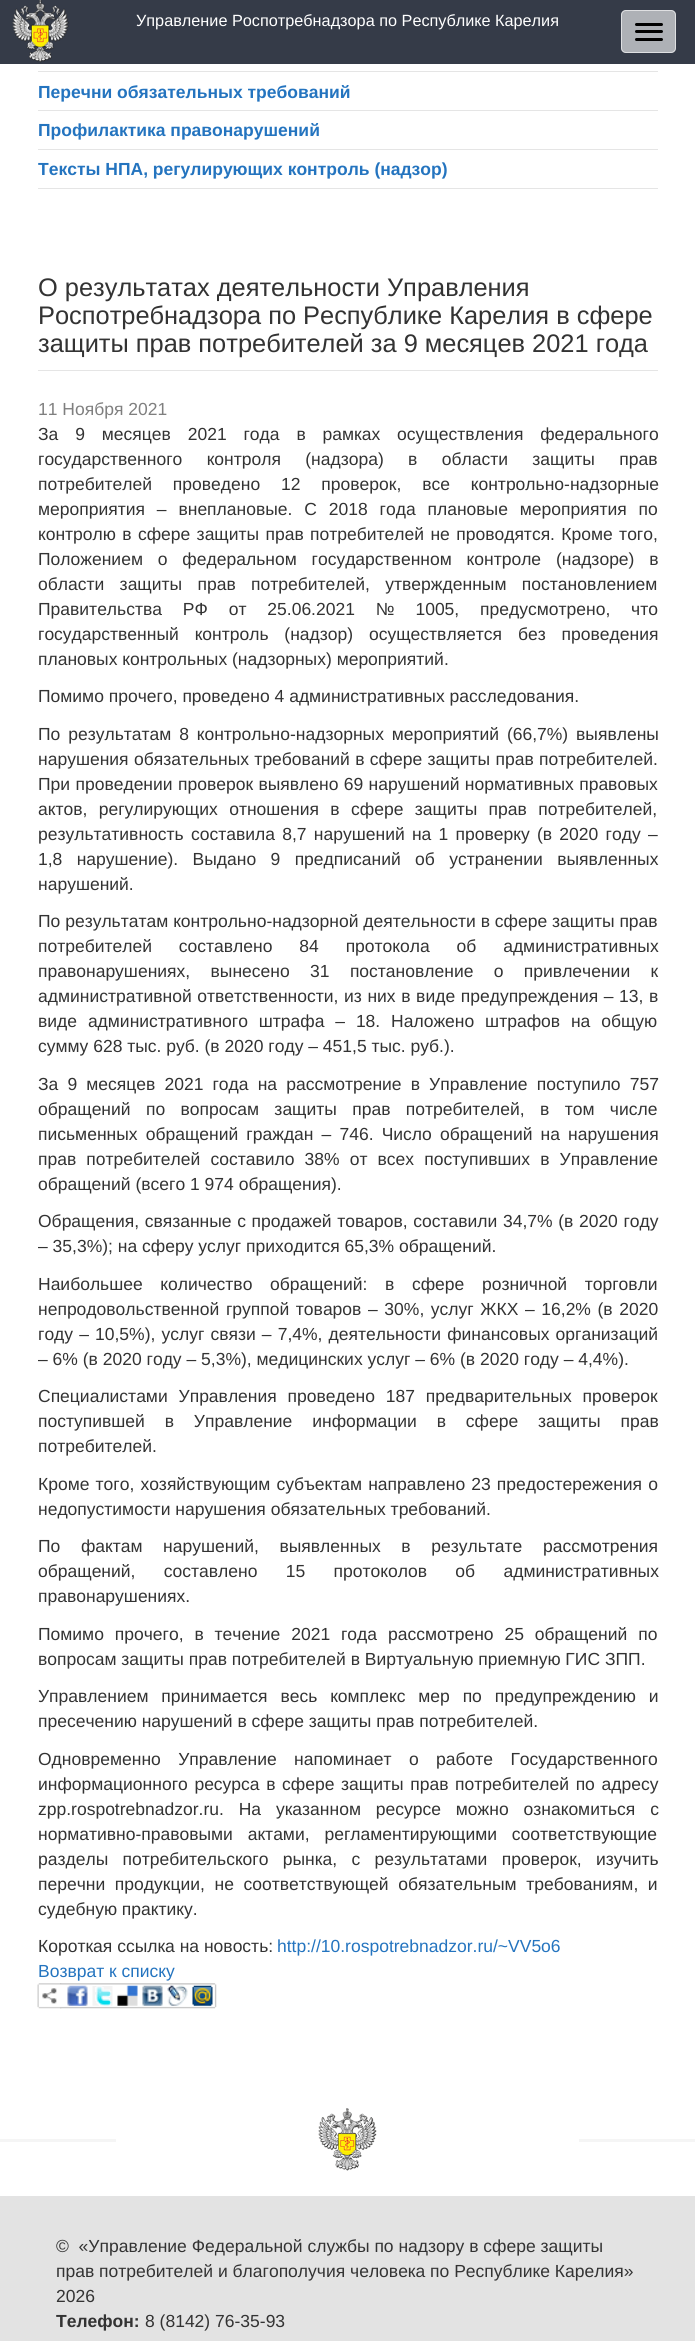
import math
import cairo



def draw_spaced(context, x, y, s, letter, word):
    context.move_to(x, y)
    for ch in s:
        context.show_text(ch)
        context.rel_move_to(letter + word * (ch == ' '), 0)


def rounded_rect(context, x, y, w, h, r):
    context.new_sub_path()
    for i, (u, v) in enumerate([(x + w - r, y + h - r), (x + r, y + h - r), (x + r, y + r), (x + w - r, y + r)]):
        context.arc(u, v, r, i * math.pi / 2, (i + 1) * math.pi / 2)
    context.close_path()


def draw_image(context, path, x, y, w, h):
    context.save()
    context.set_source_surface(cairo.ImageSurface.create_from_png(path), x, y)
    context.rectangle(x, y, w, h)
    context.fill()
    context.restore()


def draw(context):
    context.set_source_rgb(1, 1, 1)
    context.paint()
    context.set_source_rgb(53 / 255, 59 / 255, 72 / 255)
    context.rectangle(0, 0, 695, 64)
    context.fill()
    draw_image(context, "images/1.png", 12, 0, 57, 63)
    context.set_source_rgb(174 / 255, 177 / 255, 182 / 255)
    rounded_rect(context, 621, 10, 55, 43, 5)
    context.fill()
    rounded_rect(context, 621.5, 10.5, 54, 42, 4.5)
    context.set_source_rgba(1, 1, 1, 0.6)
    context.set_line_width(1)
    context.stroke()
    context.set_source_rgb(0, 0, 0)
    rounded_rect(context, 635, 23, 28, 3, 1.5)
    context.fill()
    rounded_rect(context, 635, 30, 28, 3, 1.5)
    context.fill()
    rounded_rect(context, 635, 38, 28, 3, 1.5)
    context.fill()
    context.set_source_rgb(229 / 255, 229 / 255, 229 / 255)
    context.rectangle(38, 71, 620, 1)
    context.fill()
    context.rectangle(38, 110, 620, 1)
    context.fill()
    context.rectangle(38, 149, 620, 1)
    context.fill()
    context.rectangle(38, 188, 620, 1)
    context.fill()
    context.rectangle(38, 370, 620, 1)
    context.fill()
    draw_image(context, "images/2.png", 37, 1983, 25, 26)
    draw_image(context, "images/3.png", 60, 1983, 157, 26)
    draw_image(context, "images/4.png", 67, 1985, 21, 21)
    draw_image(context, "images/5.png", 92, 1986, 21, 20)
    draw_image(context, "images/6.png", 117, 1985, 21, 21)
    draw_image(context, "images/7.png", 142, 1985, 21, 21)
    draw_image(context, "images/8.png", 167, 1985, 21, 21)
    draw_image(context, "images/9.png", 192, 1985, 21, 21)
    context.set_source_rgb(227 / 255, 227 / 255, 227 / 255)
    context.rectangle(0, 2196, 695, 145)
    context.fill()
    context.set_source_rgb(245 / 255, 245 / 255, 245 / 255)
    context.rectangle(0, 2139, 116, 3)
    context.fill()
    draw_image(context, "images/10.png", 318, 2108, 59, 63)
    context.rectangle(579, 2139, 116, 3)
    context.fill()
    context.select_font_face("Liberation Sans")
    context.set_font_size(16.25)
    context.set_source_rgb(1, 1, 1)
    context.move_to(136, 26)
    context.show_text("Управление Роспотребнадзора по Республике Карелия")
    context.select_font_face("Liberation Sans", cairo.FontSlant.NORMAL, cairo.FontWeight.BOLD)
    context.set_font_size(17.5)
    context.set_source_rgb(36 / 255, 116 / 255, 191 / 255)
    context.move_to(38, 98)
    context.show_text("Перечни обязательных требований")
    context.move_to(38, 136)
    context.show_text("Профилактика правонарушений")
    context.move_to(38, 175)
    context.show_text("Тексты НПА, регулирующих контроль (надзор)")
    context.select_font_face("Liberation Sans")
    context.set_font_size(25.4)
    context.set_source_rgb(51 / 255, 51 / 255, 51 / 255)
    context.move_to(38, 296)
    context.show_text("О результатах деятельности Управления")
    context.move_to(38, 324)
    context.show_text("Роспотребнадзора по Республике Карелия в сфере")
    context.move_to(38, 352)
    context.show_text("защиты прав потребителей за 9 месяцев 2021 года")
    context.set_font_size(17.5)
    context.set_source_rgb(127 / 255, 127 / 255, 127 / 255)
    context.move_to(38, 415)
    context.show_text("11 Ноября 2021")
    context.set_source_rgb(51 / 255, 51 / 255, 51 / 255)
    draw_spaced(context, 38, 440, "За 9 месяцев 2021 года в рамках осуществления федерального", 0, 12)
    draw_spaced(context, 38, 465, "государственного контроля (надзора) в области защиты прав", 0, 19.5)
    draw_spaced(context, 38, 490, "потребителей проведено 12 проверок, все контрольно-надзорные", 0, 16)
    draw_spaced(context, 38, 515, "мероприятия – внеплановые. С 2018 года плановые мероприятия по", 0, 7)
    draw_spaced(context, 38, 540, "контролю в сфере защиты прав потребителей не проводятся. Кроме того,", 0, 1.5)
    draw_spaced(context, 38, 565, "Положением о федеральном государственном контроле (надзоре) в", 0, 10)
    draw_spaced(context, 38, 590, "области защиты прав потребителей, утвержденным постановлением", 0, 10.5)
    draw_spaced(context, 38, 615, "Правительства РФ от 25.06.2021 № 1005, предусмотрено, что", 0, 16)
    draw_spaced(context, 38, 640, "государственный контроль (надзор) осуществляется без проведения", 0, 11)
    context.move_to(38, 665)
    context.show_text("плановых контрольных (надзорных) мероприятий.")
    context.move_to(38, 702)
    context.show_text("Помимо прочего, проведено 4 административных расследования.")
    draw_spaced(context, 38, 740, "По результатам 8 контрольно-надзорных мероприятий (66,7%) выявлены", 0, 3)
    draw_spaced(context, 38, 765, "нарушения обязательных требований в сфере защиты прав потребителей.", 0, 0.5)
    draw_spaced(context, 38, 790, "При проведении проверок выявлено 69 нарушений нормативных правовых", 0, 0.5)
    draw_spaced(context, 38, 815, "актов, регулирующих отношения в сфере защиты прав потребителей,", 0, 6.5)
    draw_spaced(context, 38, 840, "результативность составила 8,7 нарушений на 1 проверку (в 2020 году –", 0, 2.4)
    draw_spaced(context, 38, 865, "1,8 нарушение). Выдано 9 предписаний об устранении выявленных", 0, 9.5)
    context.move_to(38, 890)
    context.show_text("нарушений.")
    context.move_to(38, 927)
    context.show_text("По результатам контрольно-надзорной деятельности в сфере защиты прав")
    draw_spaced(context, 38, 952, "потребителей составлено 84 протокола об административных", 0, 22)
    draw_spaced(context, 38, 977, "правонарушениях, вынесено 31 постановление о привлечении к", 0, 15.5)
    draw_spaced(context, 38, 1002, "административной ответственности, из них в виде предупреждения – 13, в", 0, 0.75)
    draw_spaced(context, 38, 1027, "виде административного штрафа – 18. Наложено штрафов на общую", 0, 6)
    context.move_to(38, 1052)
    context.show_text("сумму 628 тыс. руб. (в 2020 году – 451,5 тыс. руб.).")
    draw_spaced(context, 38, 1090, "За 9 месяцев 2021 года на рассмотрение в Управление поступило 757", 0, 4.25)
    draw_spaced(context, 38, 1115, "обращений по вопросам защиты прав потребителей, в том числе", 0, 10.5)
    draw_spaced(context, 38, 1140, "письменных обращений граждан – 746. Число обращений на нарушения", 0, 3.25)
    draw_spaced(context, 38, 1165, "прав потребителей составило 38% от всех поступивших в Управление", 0, 5.25)
    context.move_to(38, 1190)
    context.show_text("обращений (всего 1 974 обращения).")
    draw_spaced(context, 38, 1227, "Обращения, связанные с продажей товаров, составили 34,7% (в 2020 году", 0, 0.75)
    context.move_to(38, 1252)
    context.show_text("– 35,3%); на сферу услуг приходится 65,3% обращений.")
    draw_spaced(context, 38, 1290, "Наибольшее количество обращений: в сфере розничной торговли", 0, 12.75)
    draw_spaced(context, 38, 1315, "непродовольственной группой товаров – 30%, услуг ЖКХ – 16,2% (в 2020", 0, 1.75)
    draw_spaced(context, 38, 1340, "году – 10,5%), услуг связи – 7,4%, деятельности финансовых организаций", 0, 1.25)
    context.move_to(38, 1365)
    context.show_text("– 6% (в 2020 году – 5,3%), медицинских услуг – 6% (в 2020 году – 4,4%).")
    draw_spaced(context, 38, 1402, "Специалистами Управления проведено 187 предварительных проверок", 0, 6)
    draw_spaced(context, 38, 1427, "поступившей в Управление информации в сфере защиты прав", 0, 15)
    context.move_to(38, 1452)
    context.show_text("потребителей.")
    draw_spaced(context, 38, 1490, "Кроме того, хозяйствующим субъектам направлено 23 предостережения о", 0, 1.25)
    context.move_to(38, 1515)
    context.show_text("недопустимости нарушения обязательных требований.")
    draw_spaced(context, 38, 1552, "По фактам нарушений, выявленных в результате рассмотрения", 0, 15.75)
    draw_spaced(context, 38, 1577, "обращений, составлено 15 протоколов об административных", 0, 23.5)
    context.move_to(38, 1602)
    context.show_text("правонарушениях.")
    draw_spaced(context, 38, 1640, "Помимо прочего, в течение 2021 года рассмотрено 25 обращений по", 0, 6)
    context.move_to(38, 1665)
    context.show_text("вопросам защиты прав потребителей в Виртуальную приемную ГИС ЗПП.")
    draw_spaced(context, 38, 1702, "Управлением принимается весь комплекс мер по предупреждению и", 0, 8)
    context.move_to(38, 1727)
    context.show_text("пресечению нарушений в сфере защиты прав потребителей.")
    draw_spaced(context, 38, 1765, "Одновременно Управление напоминает о работе Государственного", 0, 12.5)
    draw_spaced(context, 38, 1790, "информационного ресурса в сфере защиты прав потребителей по адресу", 0, 1.75)
    draw_spaced(context, 38, 1815, "zpp.rospotrebnadzor.ru. На указанном ресурсе можно ознакомиться с", 0, 10)
    draw_spaced(context, 38, 1840, "нормативно-правовыми актами, регламентирующими соответствующие", 0, 10)
    draw_spaced(context, 38, 1865, "разделы потребительского рынка, с результатами проверок, изучить", 0, 9.5)
    draw_spaced(context, 38, 1890, "перечни продукции, не соответствующей обязательным требованиям, и", 0, 4.75)
    context.move_to(38, 1915)
    context.show_text("судебную практику.")
    context.move_to(38, 1952)
    context.show_text("Короткая ссылка на новость:")
    context.set_source_rgb(36 / 255, 116 / 255, 191 / 255)
    context.move_to(277, 1952)
    context.show_text("http://10.rospotrebnadzor.ru/~VV5o6")
    context.move_to(38, 1977)
    context.show_text("Возврат к списку")
    context.set_source_rgb(51 / 255, 51 / 255, 51 / 255)
    context.move_to(56, 2252)
    context.show_text("©  «Управление Федеральной службы по надзору в сфере защиты")
    context.move_to(56, 2277)
    context.show_text("прав потребителей и благополучия человека по Республике Карелия»")
    context.move_to(56, 2302)
    context.show_text("2026")
    context.select_font_face("Liberation Sans", cairo.FontSlant.NORMAL, cairo.FontWeight.BOLD)
    context.move_to(56, 2327)
    context.show_text("Телефон:")
    context.select_font_face("Liberation Sans")
    context.move_to(145, 2327)
    context.show_text("8 (8142) 76-35-93")


surface = cairo.ImageSurface(cairo.Format.RGB24, 695, 2341)
context = cairo.Context(surface)
options = cairo.FontOptions()
options.set_hint_metrics(cairo.HintMetrics.OFF)
options.set_hint_style(cairo.HintStyle.NONE)
context.set_font_options(options)
context.set_miter_limit(4)
draw(context)
surface.write_to_png("out.png")
